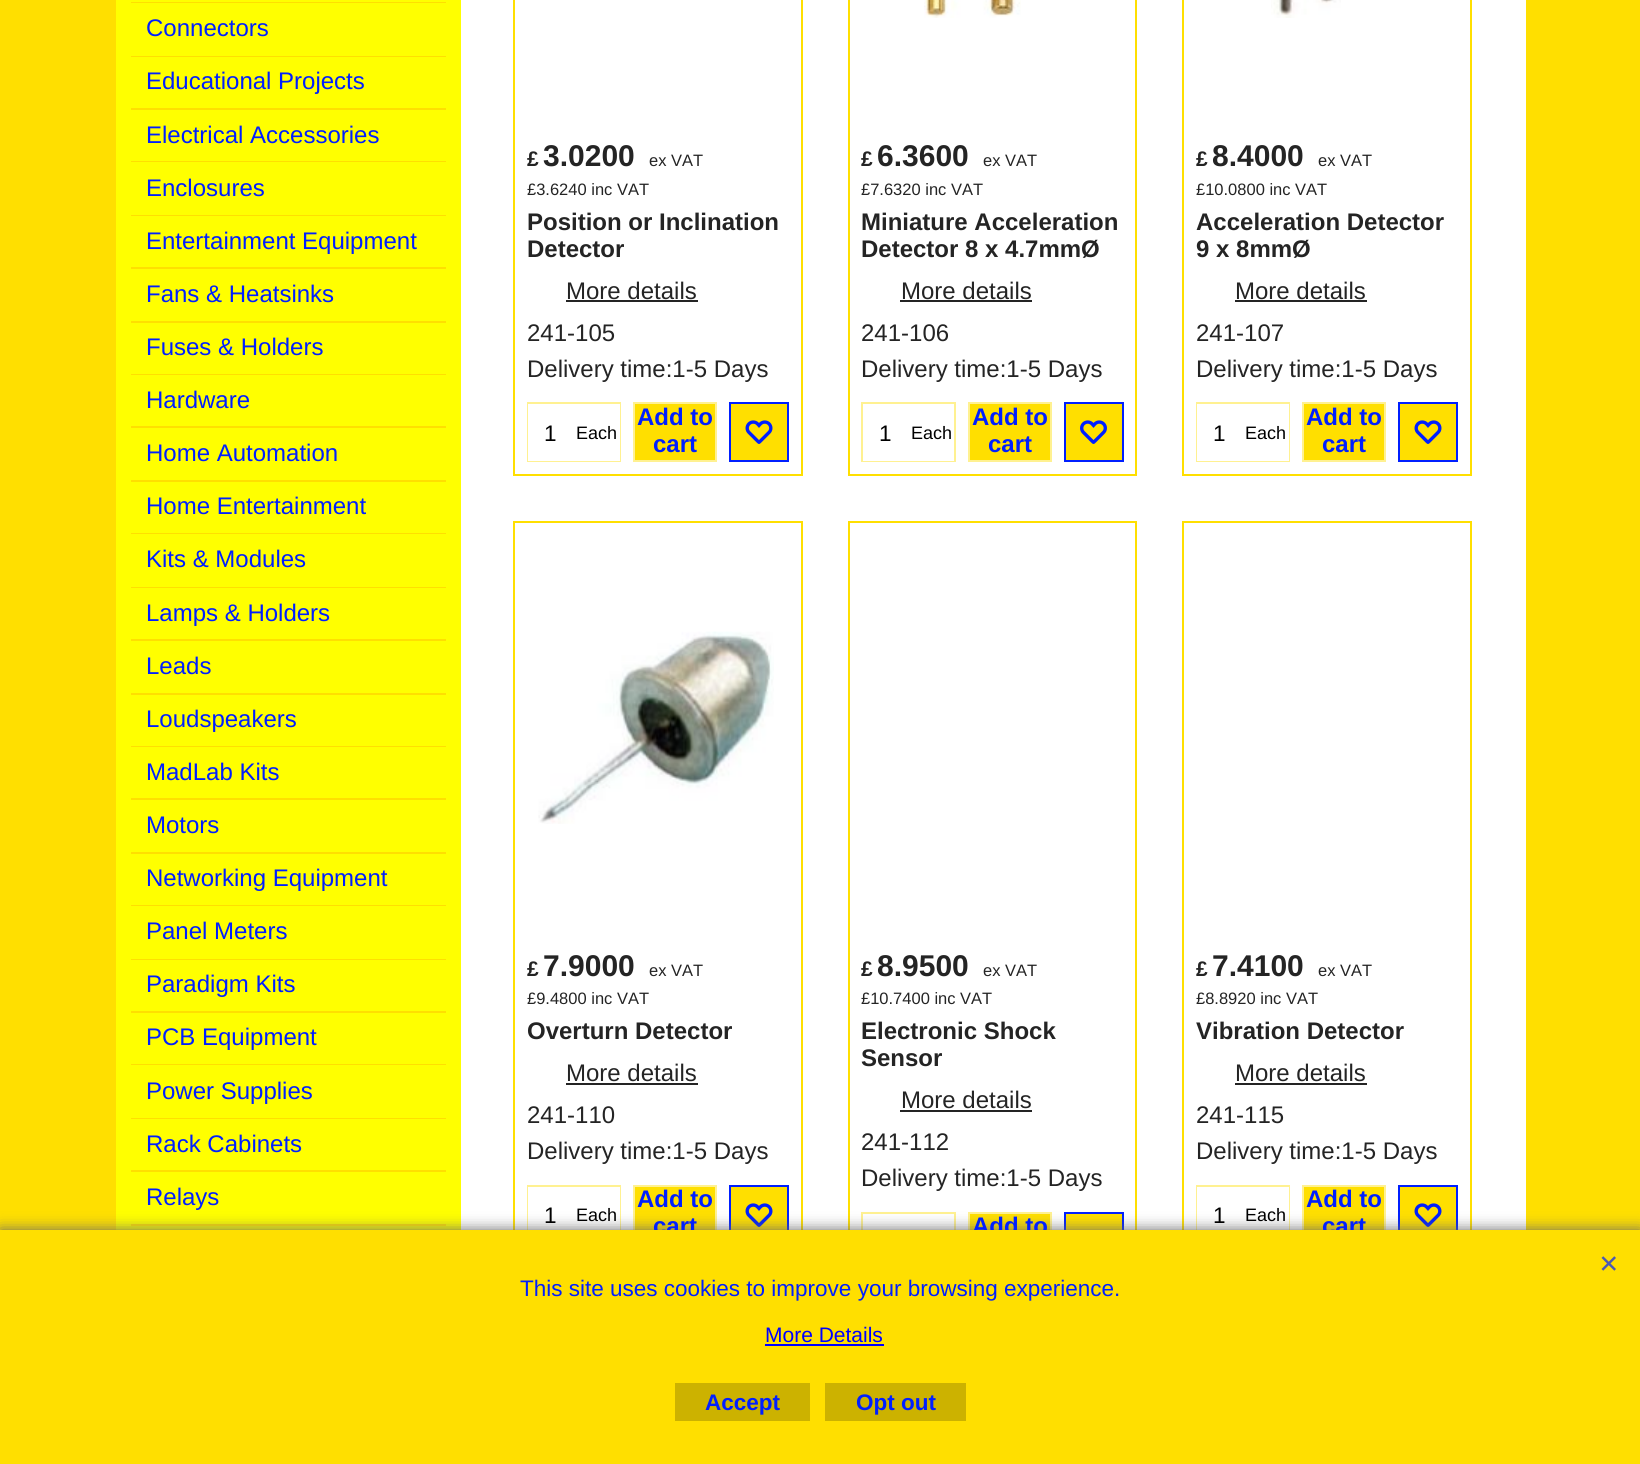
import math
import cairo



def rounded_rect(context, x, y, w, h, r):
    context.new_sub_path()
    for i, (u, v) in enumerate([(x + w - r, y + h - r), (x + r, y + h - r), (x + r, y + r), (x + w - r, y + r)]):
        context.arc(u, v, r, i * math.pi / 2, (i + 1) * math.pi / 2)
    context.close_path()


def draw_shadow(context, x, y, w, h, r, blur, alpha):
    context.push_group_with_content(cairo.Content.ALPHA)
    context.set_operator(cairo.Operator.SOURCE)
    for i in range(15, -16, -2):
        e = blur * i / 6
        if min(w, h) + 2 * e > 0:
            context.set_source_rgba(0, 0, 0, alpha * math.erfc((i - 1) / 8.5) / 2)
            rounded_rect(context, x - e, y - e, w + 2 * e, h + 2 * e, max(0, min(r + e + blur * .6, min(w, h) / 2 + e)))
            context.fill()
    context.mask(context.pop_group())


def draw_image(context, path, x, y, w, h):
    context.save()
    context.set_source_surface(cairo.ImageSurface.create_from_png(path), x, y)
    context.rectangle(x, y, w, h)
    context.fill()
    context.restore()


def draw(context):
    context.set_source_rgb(1, 223 / 255, 0)
    context.paint()
    context.set_source_rgb(1, 1, 1)
    context.rectangle(461, 0, 1065, 1230)
    context.fill()
    context.set_source_rgb(1, 1, 0)
    context.rectangle(116, 0, 345, 1230)
    context.fill()
    context.set_source_rgb(1, 223 / 255, 0)
    context.rectangle(131, 2, 315, 1)
    context.fill()
    context.rectangle(131, 56, 315, 1)
    context.fill()
    context.rectangle(131, 108, 315, 2)
    context.fill()
    context.rectangle(131, 161, 315, 1)
    context.fill()
    context.rectangle(131, 215, 315, 1)
    context.fill()
    context.rectangle(131, 267, 315, 2)
    context.fill()
    context.rectangle(131, 321, 315, 2)
    context.fill()
    context.rectangle(131, 374, 315, 1)
    context.fill()
    context.rectangle(131, 426, 315, 2)
    context.fill()
    context.rectangle(131, 480, 315, 2)
    context.fill()
    context.rectangle(131, 533, 315, 1)
    context.fill()
    context.rectangle(131, 587, 315, 1)
    context.fill()
    context.rectangle(131, 639, 315, 2)
    context.fill()
    context.rectangle(131, 693, 315, 2)
    context.fill()
    context.rectangle(131, 746, 315, 1)
    context.fill()
    context.rectangle(131, 798, 315, 2)
    context.fill()
    context.rectangle(131, 852, 315, 2)
    context.fill()
    context.rectangle(131, 905, 315, 1)
    context.fill()
    context.rectangle(131, 959, 315, 1)
    context.fill()
    context.rectangle(131, 1011, 315, 2)
    context.fill()
    context.rectangle(131, 1064, 315, 1)
    context.fill()
    context.rectangle(131, 1118, 315, 1)
    context.fill()
    context.rectangle(131, 1170, 315, 2)
    context.fill()
    context.rectangle(131, 1224, 315, 2)
    context.fill()
    context.rectangle(514, -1, 288, 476)
    context.stroke()
    context.set_source_rgb(36 / 255, 36 / 255, 36 / 255)
    context.rectangle(566, 300, 132, 2)
    context.fill()
    context.rectangle(528, 403, 92, 58)
    context.set_source_rgb(1, 241 / 255, 145 / 255)
    context.stroke()
    context.set_source_rgb(1, 1, 1)
    context.rectangle(528, 404, 92, 57)
    context.fill()
    context.set_source_rgb(1, 223 / 255, 0)
    context.rectangle(634, 403, 82, 58)
    context.fill_preserve()
    context.set_source_rgb(1, 241 / 255, 145 / 255)
    context.stroke()
    context.set_source_rgb(1, 223 / 255, 0)
    context.rectangle(730, 403, 58, 58)
    context.fill_preserve()
    context.set_source_rgb(0, 31 / 255, 1)
    context.stroke()
    draw_image(context, "images/1.png", 745, 420, 28, 24)
    context.rectangle(849, -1, 287, 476)
    context.set_source_rgb(1, 223 / 255, 0)
    context.stroke()
    draw_image(context, "images/2.png", 924, 0, 97, 18)
    context.set_source_rgb(36 / 255, 36 / 255, 36 / 255)
    context.rectangle(900, 300, 132, 2)
    context.fill()
    context.rectangle(862, 403, 93, 58)
    context.set_source_rgb(1, 241 / 255, 145 / 255)
    context.stroke()
    context.set_source_rgb(1, 1, 1)
    context.rectangle(863, 460, 91, 1)
    context.fill()
    context.set_source_rgb(1, 223 / 255, 0)
    context.rectangle(969, 403, 82, 58)
    context.fill_preserve()
    context.set_source_rgb(1, 241 / 255, 145 / 255)
    context.stroke()
    context.set_source_rgb(1, 223 / 255, 0)
    context.rectangle(1065, 403, 58, 58)
    context.fill_preserve()
    context.set_source_rgb(0, 31 / 255, 1)
    context.stroke()
    draw_image(context, "images/3.png", 1080, 420, 27, 24)
    context.rectangle(1183, -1, 288, 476)
    context.set_source_rgb(1, 223 / 255, 0)
    context.stroke()
    draw_image(context, "images/4.png", 1271, 0, 70, 18)
    context.set_source_rgb(36 / 255, 36 / 255, 36 / 255)
    context.rectangle(1235, 300, 132, 2)
    context.fill()
    context.rectangle(1197, 403, 92, 58)
    context.set_source_rgb(1, 241 / 255, 145 / 255)
    context.stroke()
    context.set_source_rgb(1, 1, 1)
    context.rectangle(1197, 404, 92, 57)
    context.fill()
    context.set_source_rgb(1, 223 / 255, 0)
    context.rectangle(1303, 403, 82, 58)
    context.fill_preserve()
    context.set_source_rgb(1, 241 / 255, 145 / 255)
    context.stroke()
    context.set_source_rgb(1, 223 / 255, 0)
    context.rectangle(1399, 403, 58, 58)
    context.fill_preserve()
    context.set_source_rgb(0, 31 / 255, 1)
    context.stroke()
    draw_image(context, "images/1.png", 1414, 420, 28, 24)
    context.rectangle(514, 522, 288, 736)
    context.set_source_rgb(1, 223 / 255, 0)
    context.stroke()
    draw_image(context, "images/5.png", 538, 631, 236, 193)
    context.set_source_rgb(36 / 255, 36 / 255, 36 / 255)
    context.rectangle(566, 1083, 132, 2)
    context.fill()
    context.rectangle(528, 1186, 92, 58)
    context.set_source_rgb(1, 241 / 255, 145 / 255)
    context.stroke()
    context.set_source_rgb(1, 1, 1)
    context.rectangle(528, 1187, 92, 43)
    context.fill()
    context.set_source_rgb(1, 223 / 255, 0)
    context.rectangle(635, 1187, 80, 43)
    context.fill()
    context.rectangle(634, 1186, 82, 58)
    context.set_source_rgb(1, 241 / 255, 145 / 255)
    context.stroke()
    context.set_source_rgb(1, 223 / 255, 0)
    context.rectangle(731, 1187, 56, 43)
    context.fill()
    context.rectangle(730, 1186, 58, 58)
    context.set_source_rgb(0, 31 / 255, 1)
    context.stroke()
    draw_image(context, "images/1.png", 745, 1203, 28, 24)
    context.rectangle(849, 522, 287, 763)
    context.set_source_rgb(1, 223 / 255, 0)
    context.stroke()
    context.set_source_rgb(36 / 255, 36 / 255, 36 / 255)
    context.rectangle(900, 1110, 132, 2)
    context.fill()
    context.rectangle(862, 1213, 93, 58)
    context.set_source_rgb(1, 241 / 255, 145 / 255)
    context.stroke()
    context.set_source_rgb(1, 223 / 255, 0)
    context.rectangle(970, 1214, 80, 16)
    context.fill()
    context.rectangle(969, 1213, 82, 58)
    context.set_source_rgb(1, 241 / 255, 145 / 255)
    context.stroke()
    context.set_source_rgb(1, 223 / 255, 0)
    context.rectangle(1066, 1214, 56, 16)
    context.fill()
    context.rectangle(1065, 1213, 58, 58)
    context.set_source_rgb(0, 31 / 255, 1)
    context.stroke()
    context.rectangle(1183, 522, 288, 736)
    context.set_source_rgb(1, 223 / 255, 0)
    context.stroke()
    context.set_source_rgb(36 / 255, 36 / 255, 36 / 255)
    context.rectangle(1235, 1083, 132, 2)
    context.fill()
    context.rectangle(1197, 1186, 92, 58)
    context.set_source_rgb(1, 241 / 255, 145 / 255)
    context.stroke()
    context.set_source_rgb(1, 1, 1)
    context.rectangle(1197, 1187, 92, 43)
    context.fill()
    context.set_source_rgb(1, 223 / 255, 0)
    context.rectangle(1304, 1187, 80, 43)
    context.fill()
    context.rectangle(1303, 1186, 82, 58)
    context.set_source_rgb(1, 241 / 255, 145 / 255)
    context.stroke()
    context.set_source_rgb(1, 223 / 255, 0)
    context.rectangle(1400, 1187, 56, 43)
    context.fill()
    context.rectangle(1399, 1186, 58, 58)
    context.set_source_rgb(0, 31 / 255, 1)
    context.stroke()
    draw_image(context, "images/1.png", 1414, 1203, 28, 24)
    context.set_source_rgb(102 / 255, 102 / 255, 102 / 255)
    draw_shadow(context, 0, 1230, 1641, 234, 0, 7.5, 1)
    context.select_font_face("Liberation Sans")
    context.set_font_size(24)
    context.set_source_rgb(0, 31 / 255, 1)
    context.move_to(146, 36)
    context.show_text("Connectors")
    context.move_to(146, 89)
    context.show_text("Educational Projects")
    context.move_to(146, 143)
    context.show_text("Electrical Accessories")
    context.move_to(146, 196)
    context.show_text("Enclosures")
    context.move_to(146, 249)
    context.show_text("Entertainment Equipment")
    context.move_to(146, 302)
    context.show_text("Fans & Heatsinks")
    context.move_to(146, 355)
    context.show_text("Fuses & Holders")
    context.move_to(146, 408)
    context.show_text("Hardware")
    context.move_to(146, 461)
    context.show_text("Home Automation")
    context.move_to(146, 514)
    context.show_text("Home Entertainment")
    context.move_to(146, 567)
    context.show_text("Kits & Modules")
    context.move_to(146, 621)
    context.show_text("Lamps & Holders")
    context.move_to(146, 674)
    context.show_text("Leads")
    context.move_to(146, 727)
    context.show_text("Loudspeakers")
    context.move_to(146, 780)
    context.show_text("MadLab Kits")
    context.move_to(146, 833)
    context.show_text("Motors")
    context.move_to(146, 886)
    context.show_text("Networking Equipment")
    context.move_to(146, 939)
    context.show_text("Panel Meters")
    context.move_to(146, 992)
    context.show_text("Paradigm Kits")
    context.move_to(146, 1045)
    context.show_text("PCB Equipment")
    context.move_to(146, 1099)
    context.show_text("Power Supplies")
    context.move_to(146, 1152)
    context.show_text("Rack Cabinets")
    context.move_to(146, 1205)
    context.show_text("Relays")
    context.select_font_face("Liberation Sans", cairo.FontSlant.NORMAL, cairo.FontWeight.BOLD)
    context.set_font_size(21)
    context.set_source_rgb(36 / 255, 36 / 255, 36 / 255)
    context.move_to(527, 166)
    context.show_text("£")
    context.set_font_size(30)
    context.move_to(543, 166)
    context.show_text("3.0200")
    context.select_font_face("Liberation Sans")
    context.set_font_size(16.5)
    context.move_to(649, 166)
    context.show_text("ex VAT")
    context.move_to(527, 195)
    context.show_text("£3.6240 inc VAT")
    context.select_font_face("Liberation Sans", cairo.FontSlant.NORMAL, cairo.FontWeight.BOLD)
    context.set_font_size(24)
    context.move_to(527, 230)
    context.show_text("Position or Inclination")
    context.move_to(527, 257)
    context.show_text("Detector")
    context.select_font_face("Liberation Sans")
    context.move_to(566, 299)
    context.show_text("More details")
    context.move_to(527, 341)
    context.show_text("241-105")
    context.move_to(527, 377)
    context.show_text("Delivery time:1-5 Days")
    context.set_font_size(22.5)
    context.set_source_rgb(0, 0, 0)
    context.move_to(544, 441)
    context.show_text("1")
    context.set_font_size(18)
    context.move_to(576, 439)
    context.show_text("Each")
    context.select_font_face("Liberation Sans", cairo.FontSlant.NORMAL, cairo.FontWeight.BOLD)
    context.set_font_size(24)
    context.set_source_rgb(0, 31 / 255, 1)
    context.move_to(637, 425)
    context.show_text("Add to")
    context.move_to(653, 452)
    context.show_text("cart")
    context.set_font_size(21)
    context.set_source_rgb(36 / 255, 36 / 255, 36 / 255)
    context.move_to(861, 166)
    context.show_text("£")
    context.set_font_size(30)
    context.move_to(877, 166)
    context.show_text("6.3600")
    context.select_font_face("Liberation Sans")
    context.set_font_size(16.5)
    context.move_to(983, 166)
    context.show_text("ex VAT")
    context.move_to(861, 195)
    context.show_text("£7.6320 inc VAT")
    context.select_font_face("Liberation Sans", cairo.FontSlant.NORMAL, cairo.FontWeight.BOLD)
    context.set_font_size(24)
    context.move_to(861, 230)
    context.show_text("Miniature Acceleration")
    context.move_to(861, 257)
    context.show_text("Detector 8 x 4.7mmØ")
    context.select_font_face("Liberation Sans")
    context.move_to(901, 299)
    context.show_text("More details")
    context.move_to(861, 341)
    context.show_text("241-106")
    context.move_to(861, 377)
    context.show_text("Delivery time:1-5 Days")
    context.set_font_size(22.5)
    context.set_source_rgb(0, 0, 0)
    context.move_to(879, 441)
    context.show_text("1")
    context.set_font_size(18)
    context.move_to(911, 439)
    context.show_text("Each")
    context.select_font_face("Liberation Sans", cairo.FontSlant.NORMAL, cairo.FontWeight.BOLD)
    context.set_font_size(24)
    context.set_source_rgb(0, 31 / 255, 1)
    context.move_to(972, 425)
    context.show_text("Add to")
    context.move_to(988, 452)
    context.show_text("cart")
    context.set_font_size(21)
    context.set_source_rgb(36 / 255, 36 / 255, 36 / 255)
    context.move_to(1196, 166)
    context.show_text("£")
    context.set_font_size(30)
    context.move_to(1212, 166)
    context.show_text("8.4000")
    context.select_font_face("Liberation Sans")
    context.set_font_size(16.5)
    context.move_to(1318, 166)
    context.show_text("ex VAT")
    context.move_to(1196, 195)
    context.show_text("£10.0800 inc VAT")
    context.select_font_face("Liberation Sans", cairo.FontSlant.NORMAL, cairo.FontWeight.BOLD)
    context.set_font_size(24)
    context.move_to(1196, 230)
    context.show_text("Acceleration Detector")
    context.move_to(1196, 257)
    context.show_text("9 x 8mmØ")
    context.select_font_face("Liberation Sans")
    context.move_to(1235, 299)
    context.show_text("More details")
    context.move_to(1196, 341)
    context.show_text("241-107")
    context.move_to(1196, 377)
    context.show_text("Delivery time:1-5 Days")
    context.set_font_size(22.5)
    context.set_source_rgb(0, 0, 0)
    context.move_to(1213, 441)
    context.show_text("1")
    context.set_font_size(18)
    context.move_to(1245, 439)
    context.show_text("Each")
    context.select_font_face("Liberation Sans", cairo.FontSlant.NORMAL, cairo.FontWeight.BOLD)
    context.set_font_size(24)
    context.set_source_rgb(0, 31 / 255, 1)
    context.move_to(1306, 425)
    context.show_text("Add to")
    context.move_to(1322, 452)
    context.show_text("cart")
    context.set_font_size(21)
    context.set_source_rgb(36 / 255, 36 / 255, 36 / 255)
    context.move_to(527, 976)
    context.show_text("£")
    context.set_font_size(30)
    context.move_to(543, 976)
    context.show_text("7.9000")
    context.select_font_face("Liberation Sans")
    context.set_font_size(16.5)
    context.move_to(649, 976)
    context.show_text("ex VAT")
    context.move_to(527, 1004)
    context.show_text("£9.4800 inc VAT")
    context.select_font_face("Liberation Sans", cairo.FontSlant.NORMAL, cairo.FontWeight.BOLD)
    context.set_font_size(24)
    context.move_to(527, 1039)
    context.show_text("Overturn Detector")
    context.select_font_face("Liberation Sans")
    context.move_to(566, 1081)
    context.show_text("More details")
    context.move_to(527, 1123)
    context.show_text("241-110")
    context.move_to(527, 1159)
    context.show_text("Delivery time:1-5 Days")
    context.set_font_size(22.5)
    context.set_source_rgb(0, 0, 0)
    context.move_to(544, 1223)
    context.show_text("1")
    context.set_font_size(18)
    context.move_to(576, 1221)
    context.show_text("Each")
    context.select_font_face("Liberation Sans", cairo.FontSlant.NORMAL, cairo.FontWeight.BOLD)
    context.set_font_size(24)
    context.set_source_rgb(0, 31 / 255, 1)
    context.move_to(637, 1207)
    context.show_text("Add to")
    context.move_to(653, 1234)
    context.show_text("cart")
    context.set_font_size(21)
    context.set_source_rgb(36 / 255, 36 / 255, 36 / 255)
    context.move_to(861, 976)
    context.show_text("£")
    context.set_font_size(30)
    context.move_to(877, 976)
    context.show_text("8.9500")
    context.select_font_face("Liberation Sans")
    context.set_font_size(16.5)
    context.move_to(983, 976)
    context.show_text("ex VAT")
    context.move_to(861, 1004)
    context.show_text("£10.7400 inc VAT")
    context.select_font_face("Liberation Sans", cairo.FontSlant.NORMAL, cairo.FontWeight.BOLD)
    context.set_font_size(24)
    context.move_to(861, 1039)
    context.show_text("Electronic Shock")
    context.move_to(861, 1066)
    context.show_text("Sensor")
    context.select_font_face("Liberation Sans")
    context.move_to(901, 1108)
    context.show_text("More details")
    context.move_to(861, 1150)
    context.show_text("241-112")
    context.move_to(861, 1186)
    context.show_text("Delivery time:1-5 Days")
    context.select_font_face("Liberation Sans", cairo.FontSlant.NORMAL, cairo.FontWeight.BOLD)
    context.set_source_rgb(0, 31 / 255, 1)
    context.move_to(972, 1234)
    context.show_text("Add to")
    context.set_font_size(21)
    context.set_source_rgb(36 / 255, 36 / 255, 36 / 255)
    context.move_to(1196, 976)
    context.show_text("£")
    context.set_font_size(30)
    context.move_to(1212, 976)
    context.show_text("7.4100")
    context.select_font_face("Liberation Sans")
    context.set_font_size(16.5)
    context.move_to(1318, 976)
    context.show_text("ex VAT")
    context.move_to(1196, 1004)
    context.show_text("£8.8920 inc VAT")
    context.select_font_face("Liberation Sans", cairo.FontSlant.NORMAL, cairo.FontWeight.BOLD)
    context.set_font_size(24)
    context.move_to(1196, 1039)
    context.show_text("Vibration Detector")
    context.select_font_face("Liberation Sans")
    context.move_to(1235, 1081)
    context.show_text("More details")
    context.move_to(1196, 1123)
    context.show_text("241-115")
    context.move_to(1196, 1159)
    context.show_text("Delivery time:1-5 Days")
    context.set_font_size(22.5)
    context.set_source_rgb(0, 0, 0)
    context.move_to(1213, 1223)
    context.show_text("1")
    context.set_font_size(18)
    context.move_to(1245, 1221)
    context.show_text("Each")
    context.select_font_face("Liberation Sans", cairo.FontSlant.NORMAL, cairo.FontWeight.BOLD)
    context.set_font_size(24)
    context.set_source_rgb(0, 31 / 255, 1)
    context.move_to(1306, 1207)
    context.show_text("Add to")
    context.move_to(1322, 1234)
    context.show_text("cart")
    context.set_source_rgb(1, 223 / 255, 0)
    context.rectangle(0, 1230, 1640, 234)
    context.fill()
    draw_image(context, "images/6.png", 1601, 1256, 15, 15)
    context.select_font_face("Liberation Sans")
    context.set_font_size(22.5)
    context.set_source_rgb(0, 31 / 255, 1)
    context.move_to(520, 1296)
    context.show_text("This site uses cookies to improve your browsing experience.")
    context.set_font_size(21)
    context.set_source_rgb(0, 0, 1)
    context.move_to(765, 1342)
    context.show_text("More Details")
    context.rectangle(765, 1344, 119, 2)
    context.fill()
    context.set_source_rgb(204 / 255, 178 / 255, 0)
    context.rectangle(675, 1383, 135, 38)
    context.fill()
    context.select_font_face("Liberation Sans", cairo.FontSlant.NORMAL, cairo.FontWeight.BOLD)
    context.set_font_size(22.5)
    context.set_source_rgb(0, 31 / 255, 1)
    context.move_to(705, 1410)
    context.show_text("Accept")
    context.set_source_rgb(204 / 255, 178 / 255, 0)
    context.rectangle(825, 1383, 141, 38)
    context.fill()
    context.set_source_rgb(0, 31 / 255, 1)
    context.move_to(856, 1410)
    context.show_text("Opt out")


surface = cairo.ImageSurface(cairo.Format.RGB24, 1640, 1464)
context = cairo.Context(surface)
options = cairo.FontOptions()
options.set_hint_metrics(cairo.HintMetrics.OFF)
options.set_hint_style(cairo.HintStyle.NONE)
context.set_font_options(options)
context.set_miter_limit(4)
draw(context)
surface.write_to_png("out.png")
